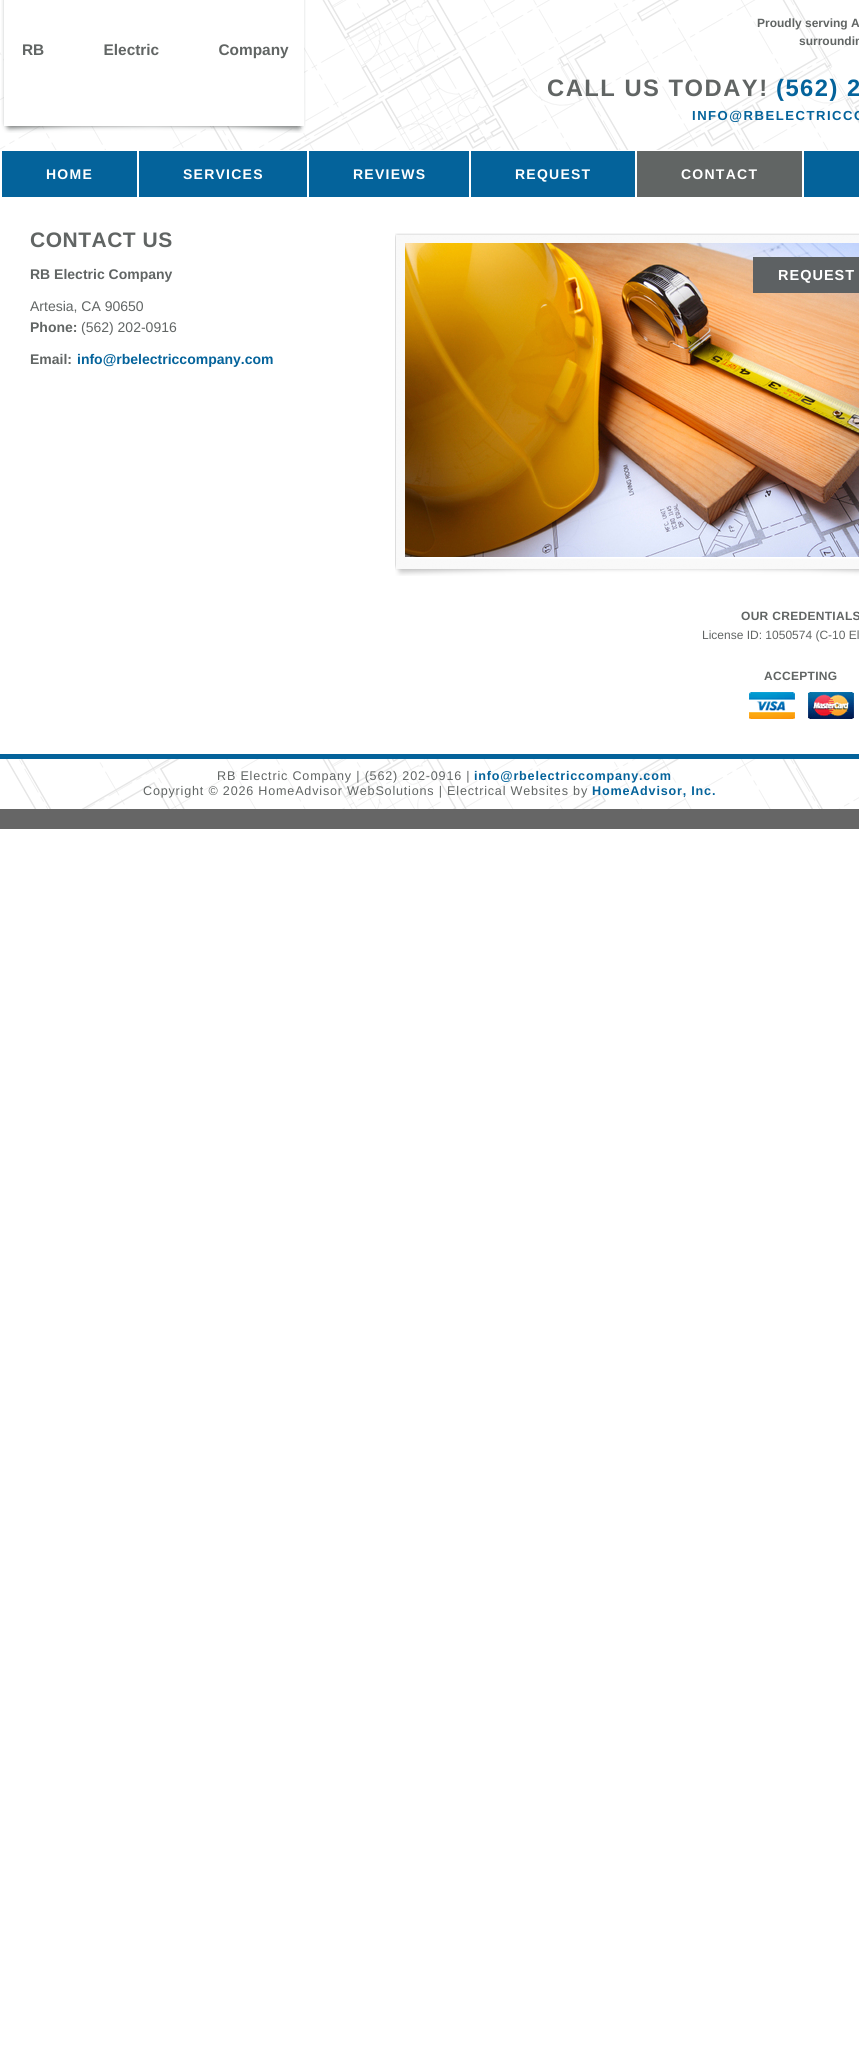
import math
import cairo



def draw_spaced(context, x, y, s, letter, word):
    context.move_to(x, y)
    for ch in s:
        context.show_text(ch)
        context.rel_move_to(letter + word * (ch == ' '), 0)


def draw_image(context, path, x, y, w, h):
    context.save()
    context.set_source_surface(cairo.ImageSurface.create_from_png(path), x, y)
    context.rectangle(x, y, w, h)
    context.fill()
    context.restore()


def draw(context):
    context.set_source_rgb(1, 1, 1)
    context.paint()
    draw_image(context, "images/1.png", 0, 0, 859, 150)
    draw_image(context, "images/2.png", 1, 0, 305, 133)
    context.set_source_rgb(4 / 255, 99 / 255, 155 / 255)
    context.rectangle(2, 151, 857, 46)
    context.fill()
    context.set_source_rgb(1, 1, 1)
    context.rectangle(137, 151, 2, 46)
    context.fill()
    context.rectangle(307, 151, 2, 46)
    context.fill()
    context.rectangle(469, 151, 2, 46)
    context.fill()
    context.rectangle(635, 151, 2, 46)
    context.fill()
    context.set_source_rgb(97 / 255, 101 / 255, 100 / 255)
    context.rectangle(637, 151, 165, 46)
    context.fill()
    context.set_source_rgb(1, 1, 1)
    context.rectangle(802, 151, 2, 46)
    context.fill()
    draw_image(context, "images/3.png", 395, 233, 464, 343)
    draw_image(context, "images/4.png", 405, 243, 454, 314)
    context.set_source_rgb(93 / 255, 97 / 255, 99 / 255)
    context.rectangle(753, 257, 106, 36)
    context.fill()
    draw_image(context, "images/5.png", 749, 692, 46, 27)
    draw_image(context, "images/6.png", 808, 692, 46, 27)
    draw_image(context, "images/7.png", 0, 759, 859, 50)
    context.set_source_rgb(4 / 255, 99 / 255, 155 / 255)
    context.rectangle(0, 754, 859, 5)
    context.fill()
    context.set_source_rgb(102 / 255, 102 / 255, 102 / 255)
    context.rectangle(0, 809, 859, 20)
    context.fill()
    context.select_font_face("Liberation Sans", cairo.FontSlant.NORMAL, cairo.FontWeight.BOLD)
    context.set_font_size(12)
    context.set_source_rgb(97 / 255, 101 / 255, 100 / 255)
    context.move_to(757, 27)
    context.show_text("Proudly serving A")
    context.move_to(799, 45)
    context.show_text("surroundin")
    context.set_font_size(15.4)
    draw_spaced(context, 22, 55, "RB Electric Company", 0, 55)
    context.set_font_size(23.75)
    draw_spaced(context, 547, 96, "CALL US TODAY!", 1.5, 0)
    context.set_source_rgb(4 / 255, 99 / 255, 155 / 255)
    draw_spaced(context, 776, 96, "(562) 2", 1.5, 0)
    context.set_font_size(13.1)
    draw_spaced(context, 692, 120, "INFO@RBELECTRICCO", 1.5, 0)
    context.set_font_size(14)
    context.set_source_rgb(1, 1, 1)
    draw_spaced(context, 46, 179, "HOME", 1.25, 0)
    draw_spaced(context, 183, 179, "SERVICES", 1.25, 0)
    draw_spaced(context, 353, 179, "REVIEWS", 1.25, 0)
    draw_spaced(context, 515, 179, "REQUEST", 1.25, 0)
    draw_spaced(context, 681, 179, "CONTACT", 1.25, 0)
    context.set_font_size(21)
    context.set_source_rgb(97 / 255, 101 / 255, 100 / 255)
    draw_spaced(context, 30, 247, "CONTACT US", 0.5, 0)
    context.set_font_size(14)
    context.move_to(30, 279)
    context.show_text("RB Electric Company")
    context.select_font_face("Liberation Sans")
    context.move_to(30, 311)
    context.show_text("Artesia, CA 90650")
    context.select_font_face("Liberation Sans", cairo.FontSlant.NORMAL, cairo.FontWeight.BOLD)
    context.move_to(30, 332)
    context.show_text("Phone:")
    context.select_font_face("Liberation Sans")
    context.move_to(81, 332)
    context.show_text("(562) 202-0916")
    context.select_font_face("Liberation Sans", cairo.FontSlant.NORMAL, cairo.FontWeight.BOLD)
    context.move_to(30, 364)
    context.show_text("Email:")
    context.set_source_rgb(4 / 255, 99 / 255, 155 / 255)
    context.move_to(77, 364)
    context.show_text("info@rbelectriccompany.com")
    context.set_font_size(14.5)
    context.set_source_rgb(1, 1, 1)
    draw_spaced(context, 778, 280, "REQUEST", 1, 0)
    context.set_font_size(12)
    context.set_source_rgb(97 / 255, 101 / 255, 100 / 255)
    draw_spaced(context, 741, 620, "OUR CREDENTIALS", 0.3, 0)
    context.select_font_face("Liberation Sans")
    context.move_to(702, 639)
    context.show_text("License ID: 1050574 (C-10 El")
    context.select_font_face("Liberation Sans", cairo.FontSlant.NORMAL, cairo.FontWeight.BOLD)
    draw_spaced(context, 764, 680, "ACCEPTING", 0.3, 0)
    context.select_font_face("Liberation Sans")
    context.set_font_size(12.6)
    draw_spaced(context, 217, 780, "RB Electric Company | (562) 202-0916 |", 0.8, 0)
    context.select_font_face("Liberation Sans", cairo.FontSlant.NORMAL, cairo.FontWeight.BOLD)
    context.set_source_rgb(4 / 255, 99 / 255, 155 / 255)
    draw_spaced(context, 474, 780, "info@rbelectriccompany.com", 0.8, 0)
    context.select_font_face("Liberation Sans")
    context.set_source_rgb(97 / 255, 101 / 255, 100 / 255)
    draw_spaced(context, 143, 795, "Copyright © 2026 HomeAdvisor WebSolutions | Electrical Websites by", 0.8, 0)
    context.select_font_face("Liberation Sans", cairo.FontSlant.NORMAL, cairo.FontWeight.BOLD)
    context.set_source_rgb(4 / 255, 99 / 255, 155 / 255)
    draw_spaced(context, 592, 795, "HomeAdvisor, Inc.", 0.8, 0)


surface = cairo.ImageSurface(cairo.Format.RGB24, 859, 2070)
context = cairo.Context(surface)
options = cairo.FontOptions()
options.set_hint_metrics(cairo.HintMetrics.OFF)
options.set_hint_style(cairo.HintStyle.NONE)
context.set_font_options(options)
context.set_miter_limit(4)
draw(context)
surface.write_to_png("out.png")
